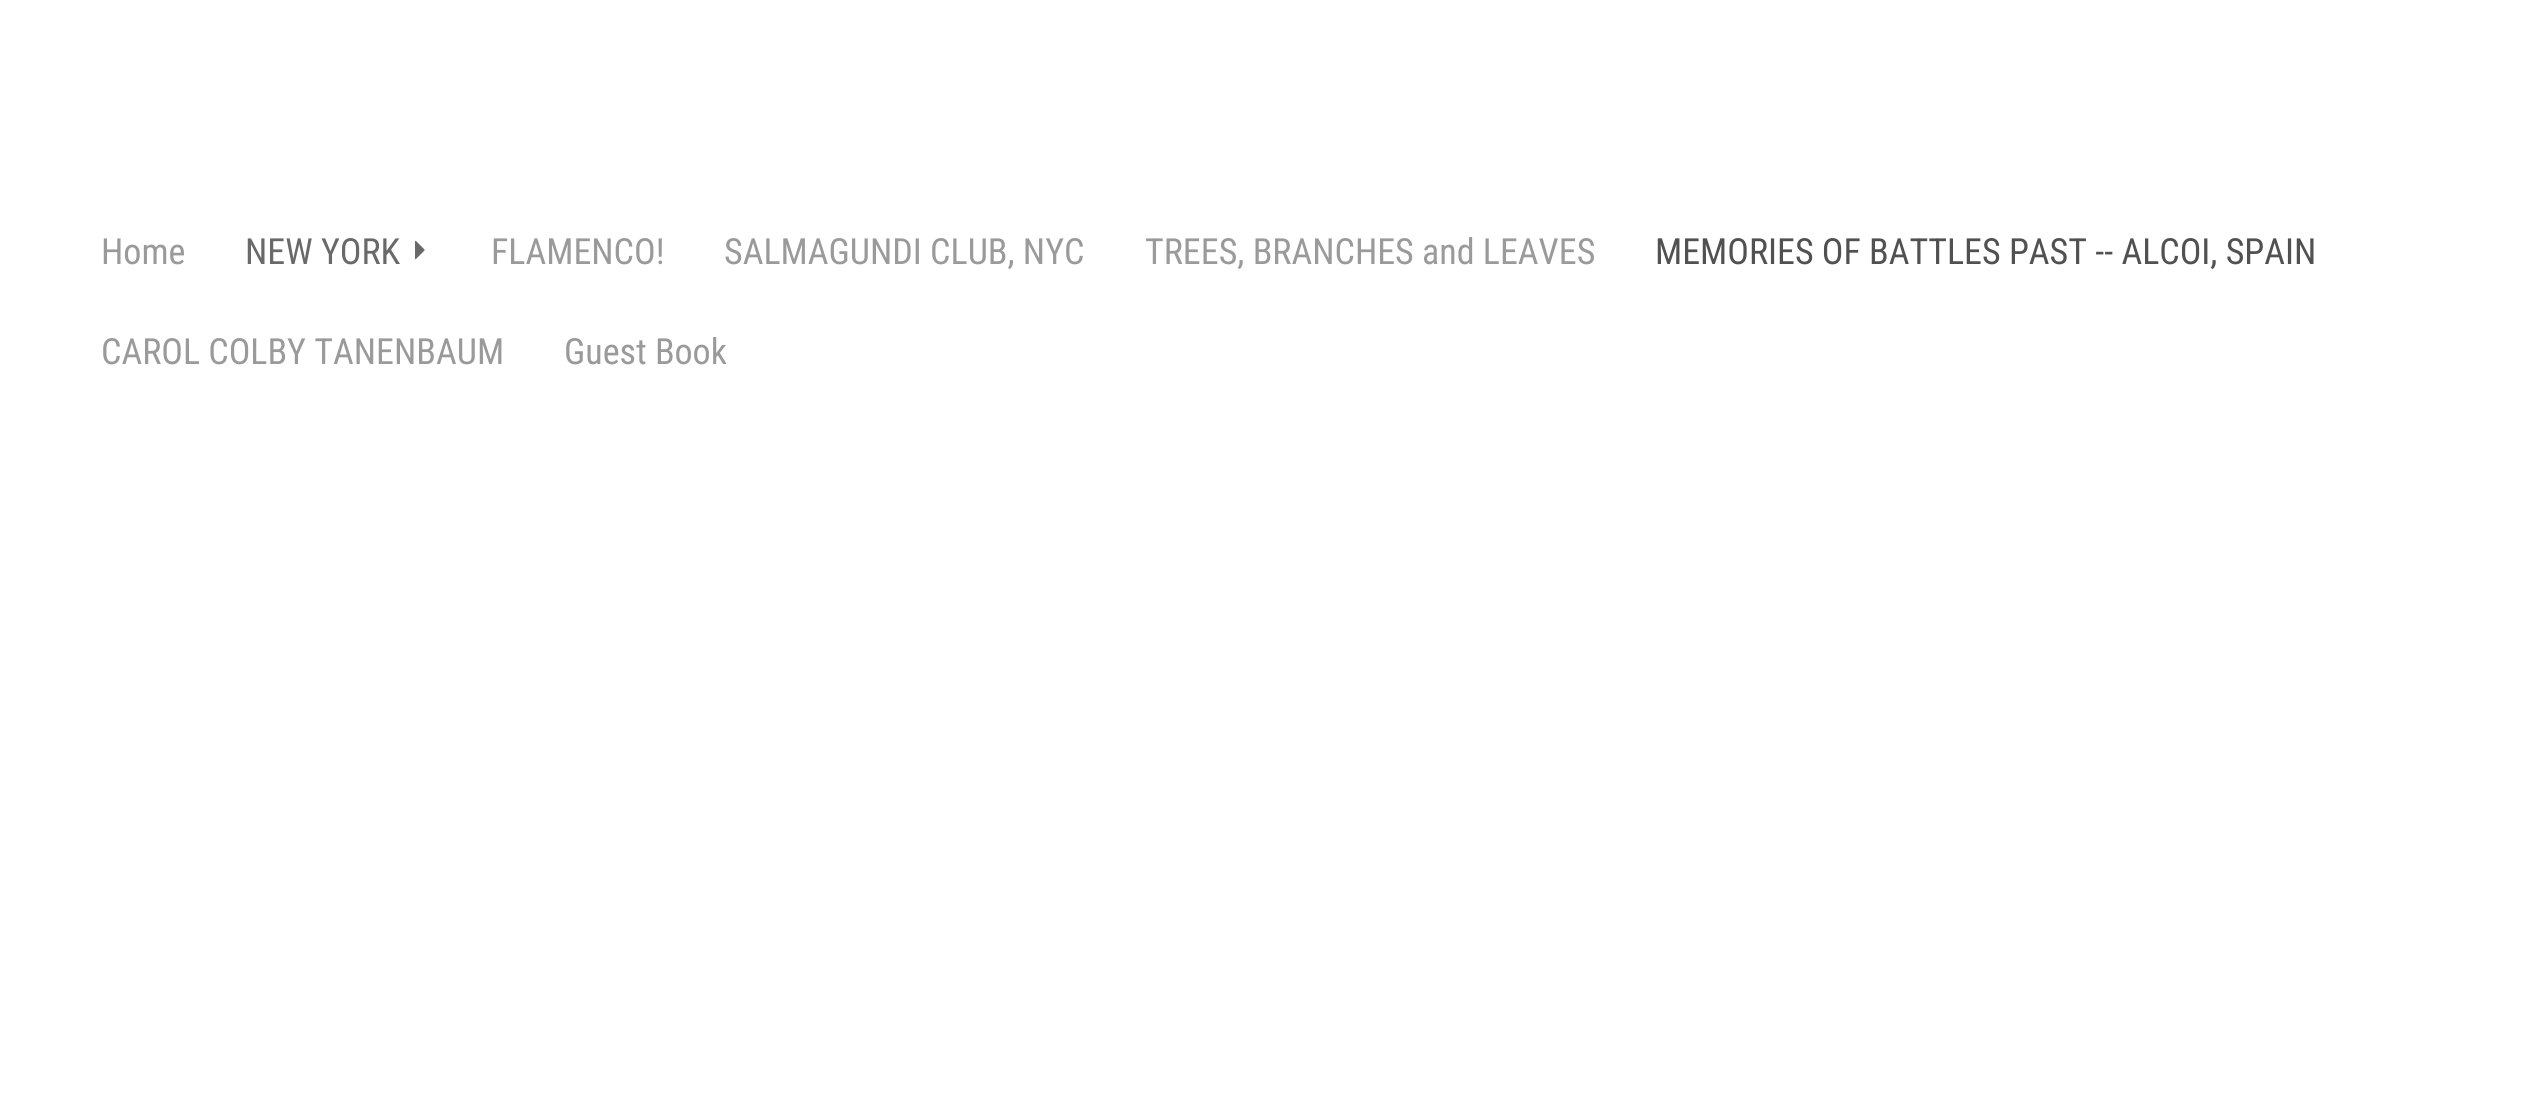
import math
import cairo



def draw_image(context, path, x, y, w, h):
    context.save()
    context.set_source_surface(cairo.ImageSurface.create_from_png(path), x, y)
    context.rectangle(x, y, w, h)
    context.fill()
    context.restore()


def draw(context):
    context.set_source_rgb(1, 1, 1)
    context.paint()
    draw_image(context, "images/1.png", 415, 240, 10, 20)
    context.select_font_face("Roboto Condensed")
    context.set_font_size(36)
    context.set_source_rgb(154 / 255, 154 / 255, 154 / 255)
    context.move_to(101, 264)
    context.show_text("Home")
    context.set_source_rgb(105 / 255, 105 / 255, 105 / 255)
    context.move_to(245, 264)
    context.show_text("NEW YORK")
    context.set_source_rgb(154 / 255, 154 / 255, 154 / 255)
    context.move_to(491, 264)
    context.show_text("FLAMENCO!")
    context.move_to(724, 264)
    context.show_text("SALMAGUNDI CLUB, NYC")
    context.move_to(1145, 264)
    context.show_text("TREES, BRANCHES and LEAVES")
    context.set_source_rgb(81 / 255, 81 / 255, 81 / 255)
    context.move_to(1655, 264)
    context.show_text("MEMORIES OF BATTLES PAST -- ALCOI, SPAIN")
    context.set_source_rgb(154 / 255, 154 / 255, 154 / 255)
    context.move_to(101, 364)
    context.show_text("CAROL COLBY TANENBAUM")
    context.move_to(564, 364)
    context.show_text("Guest Book")


surface = cairo.ImageSurface(cairo.Format.RGB24, 2541, 1110)
context = cairo.Context(surface)
options = cairo.FontOptions()
options.set_hint_metrics(cairo.HintMetrics.OFF)
options.set_hint_style(cairo.HintStyle.NONE)
context.set_font_options(options)
context.set_miter_limit(4)
draw(context)
surface.write_to_png("out.png")
